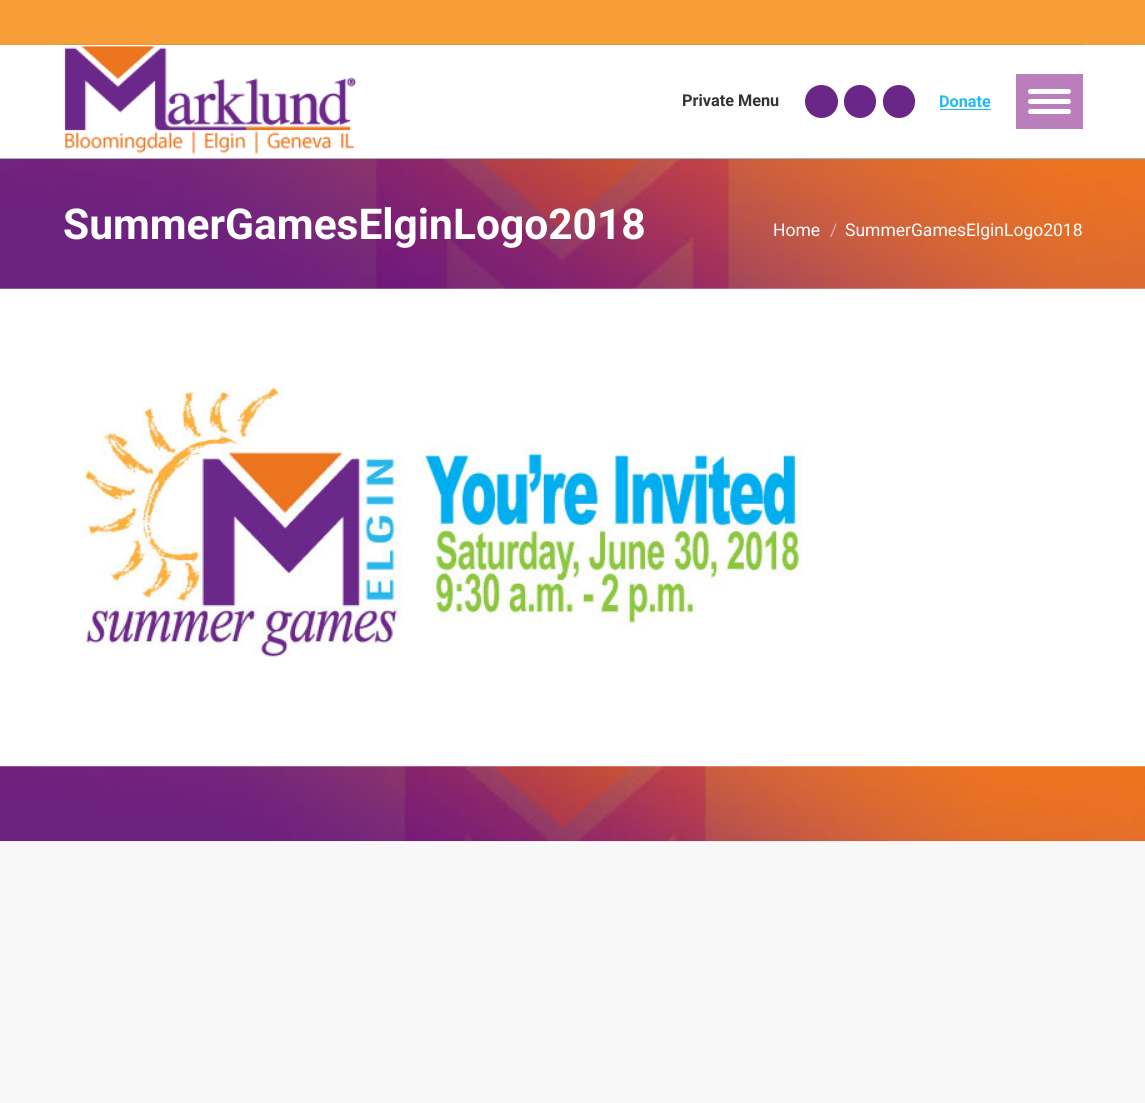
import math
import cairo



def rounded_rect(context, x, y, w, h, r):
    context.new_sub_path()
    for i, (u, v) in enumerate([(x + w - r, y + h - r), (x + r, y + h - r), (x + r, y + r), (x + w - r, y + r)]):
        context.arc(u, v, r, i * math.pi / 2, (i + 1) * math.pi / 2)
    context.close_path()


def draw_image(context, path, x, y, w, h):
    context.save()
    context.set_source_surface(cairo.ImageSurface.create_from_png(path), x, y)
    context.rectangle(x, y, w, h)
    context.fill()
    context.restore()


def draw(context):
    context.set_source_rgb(248 / 255, 248 / 255, 249 / 255)
    context.paint()
    context.set_source_rgb(1, 1, 1)
    context.rectangle(0, 288, 1145, 479)
    context.fill()
    context.rectangle(0, 45, 1145, 113)
    context.fill()
    context.set_source_rgb(173 / 255, 176 / 255, 182 / 255)
    context.rectangle(0, 158, 1145, 1)
    context.fill()
    context.set_source_rgb(247 / 255, 158 / 255, 56 / 255)
    context.rectangle(0, 0, 1145, 45)
    context.fill()
    context.set_source_rgb(225 / 255, 146 / 255, 55 / 255)
    context.rectangle(63, 44, 1020, 1)
    context.fill()
    draw_image(context, "images/1.png", 64, 46, 293, 108)
    context.set_source_rgb(106 / 255, 39 / 255, 135 / 255)
    context.arc(821.5, 101.5, 16.5, 0, 2 * math.pi)
    context.fill()
    rounded_rect(context, 844, 85, 32, 33, 16)
    context.fill()
    rounded_rect(context, 883, 85, 32, 33, 16)
    context.fill()
    context.set_source_rgb(30 / 255, 187 / 255, 240 / 255)
    context.rectangle(940, 109, 51, 1)
    context.fill()
    context.set_source_rgb(185 / 255, 126 / 255, 187 / 255)
    context.rectangle(1016, 74, 67, 55)
    context.fill()
    context.set_source_rgb(1, 1, 1)
    rounded_rect(context, 1028, 89, 43, 5, 2.5)
    context.fill()
    rounded_rect(context, 1028, 99, 43, 5, 2.5)
    context.fill()
    rounded_rect(context, 1028, 109, 43, 5, 2.5)
    context.fill()
    draw_image(context, "images/2.png", 0, 159, 1145, 130)
    draw_image(context, "images/3.png", 82, 386, 721, 271)
    draw_image(context, "images/4.png", 0, 766, 1145, 76)
    context.select_font_face("Roboto", cairo.FontSlant.NORMAL, cairo.FontWeight.BOLD)
    context.set_font_size(16.25)
    context.set_source_rgb(51 / 255, 51 / 255, 51 / 255)
    context.move_to(682, 106)
    context.show_text("Private Menu")
    context.set_source_rgb(30 / 255, 187 / 255, 240 / 255)
    context.move_to(939, 107)
    context.show_text("Donate")
    context.set_font_size(42.5)
    context.set_source_rgb(1, 1, 1)
    context.move_to(63, 239)
    context.show_text("SummerGamesElginLogo2018")
    context.select_font_face("Roboto")
    context.set_font_size(17.5)
    context.move_to(773, 236)
    context.show_text("Home")
    context.set_source_rgb(227 / 255, 173 / 255, 160 / 255)
    context.move_to(830, 236)
    context.show_text("/")
    context.set_source_rgb(1, 1, 1)
    context.move_to(845, 236)
    context.show_text("SummerGamesElginLogo2018")


surface = cairo.ImageSurface(cairo.Format.RGB24, 1145, 1103)
context = cairo.Context(surface)
options = cairo.FontOptions()
options.set_hint_metrics(cairo.HintMetrics.OFF)
options.set_hint_style(cairo.HintStyle.NONE)
context.set_font_options(options)
context.set_miter_limit(4)
draw(context)
surface.write_to_png("out.png")
